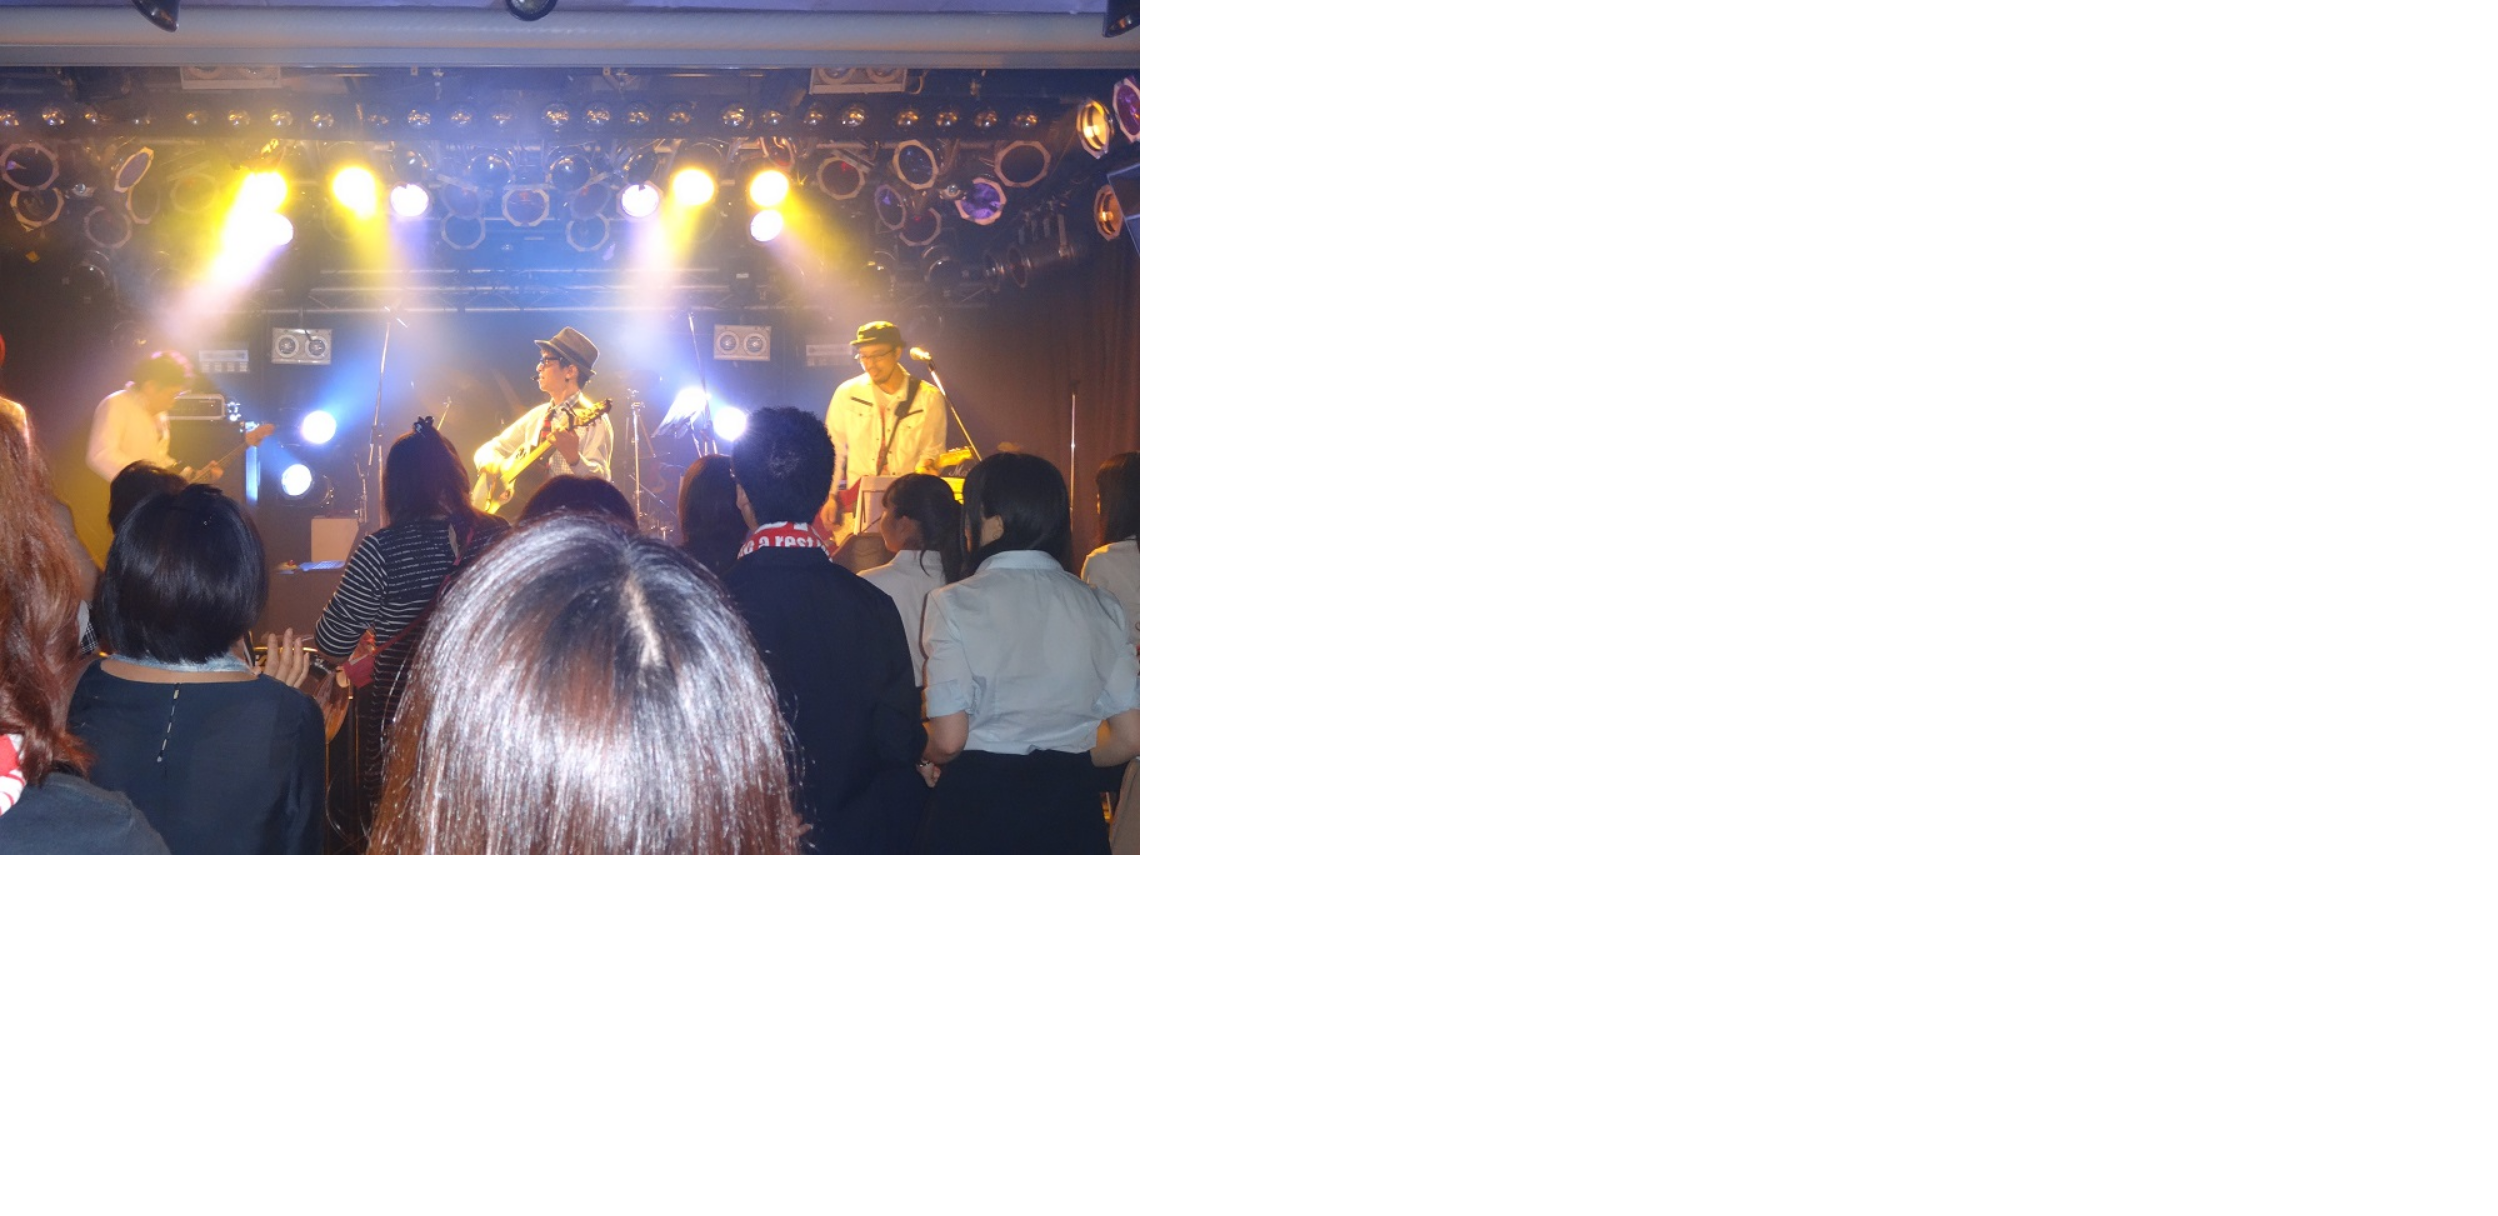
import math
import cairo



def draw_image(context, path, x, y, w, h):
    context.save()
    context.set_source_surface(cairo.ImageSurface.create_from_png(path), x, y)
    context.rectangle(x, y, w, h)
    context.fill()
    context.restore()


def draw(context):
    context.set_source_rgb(1, 1, 1)
    context.paint()
    draw_image(context, "images/1.png", 0, 0, 1140, 855)


surface = cairo.ImageSurface(cairo.Format.RGB24, 2498, 1216)
context = cairo.Context(surface)
options = cairo.FontOptions()
options.set_hint_metrics(cairo.HintMetrics.OFF)
options.set_hint_style(cairo.HintStyle.NONE)
context.set_font_options(options)
context.set_miter_limit(4)
draw(context)
surface.write_to_png("out.png")
